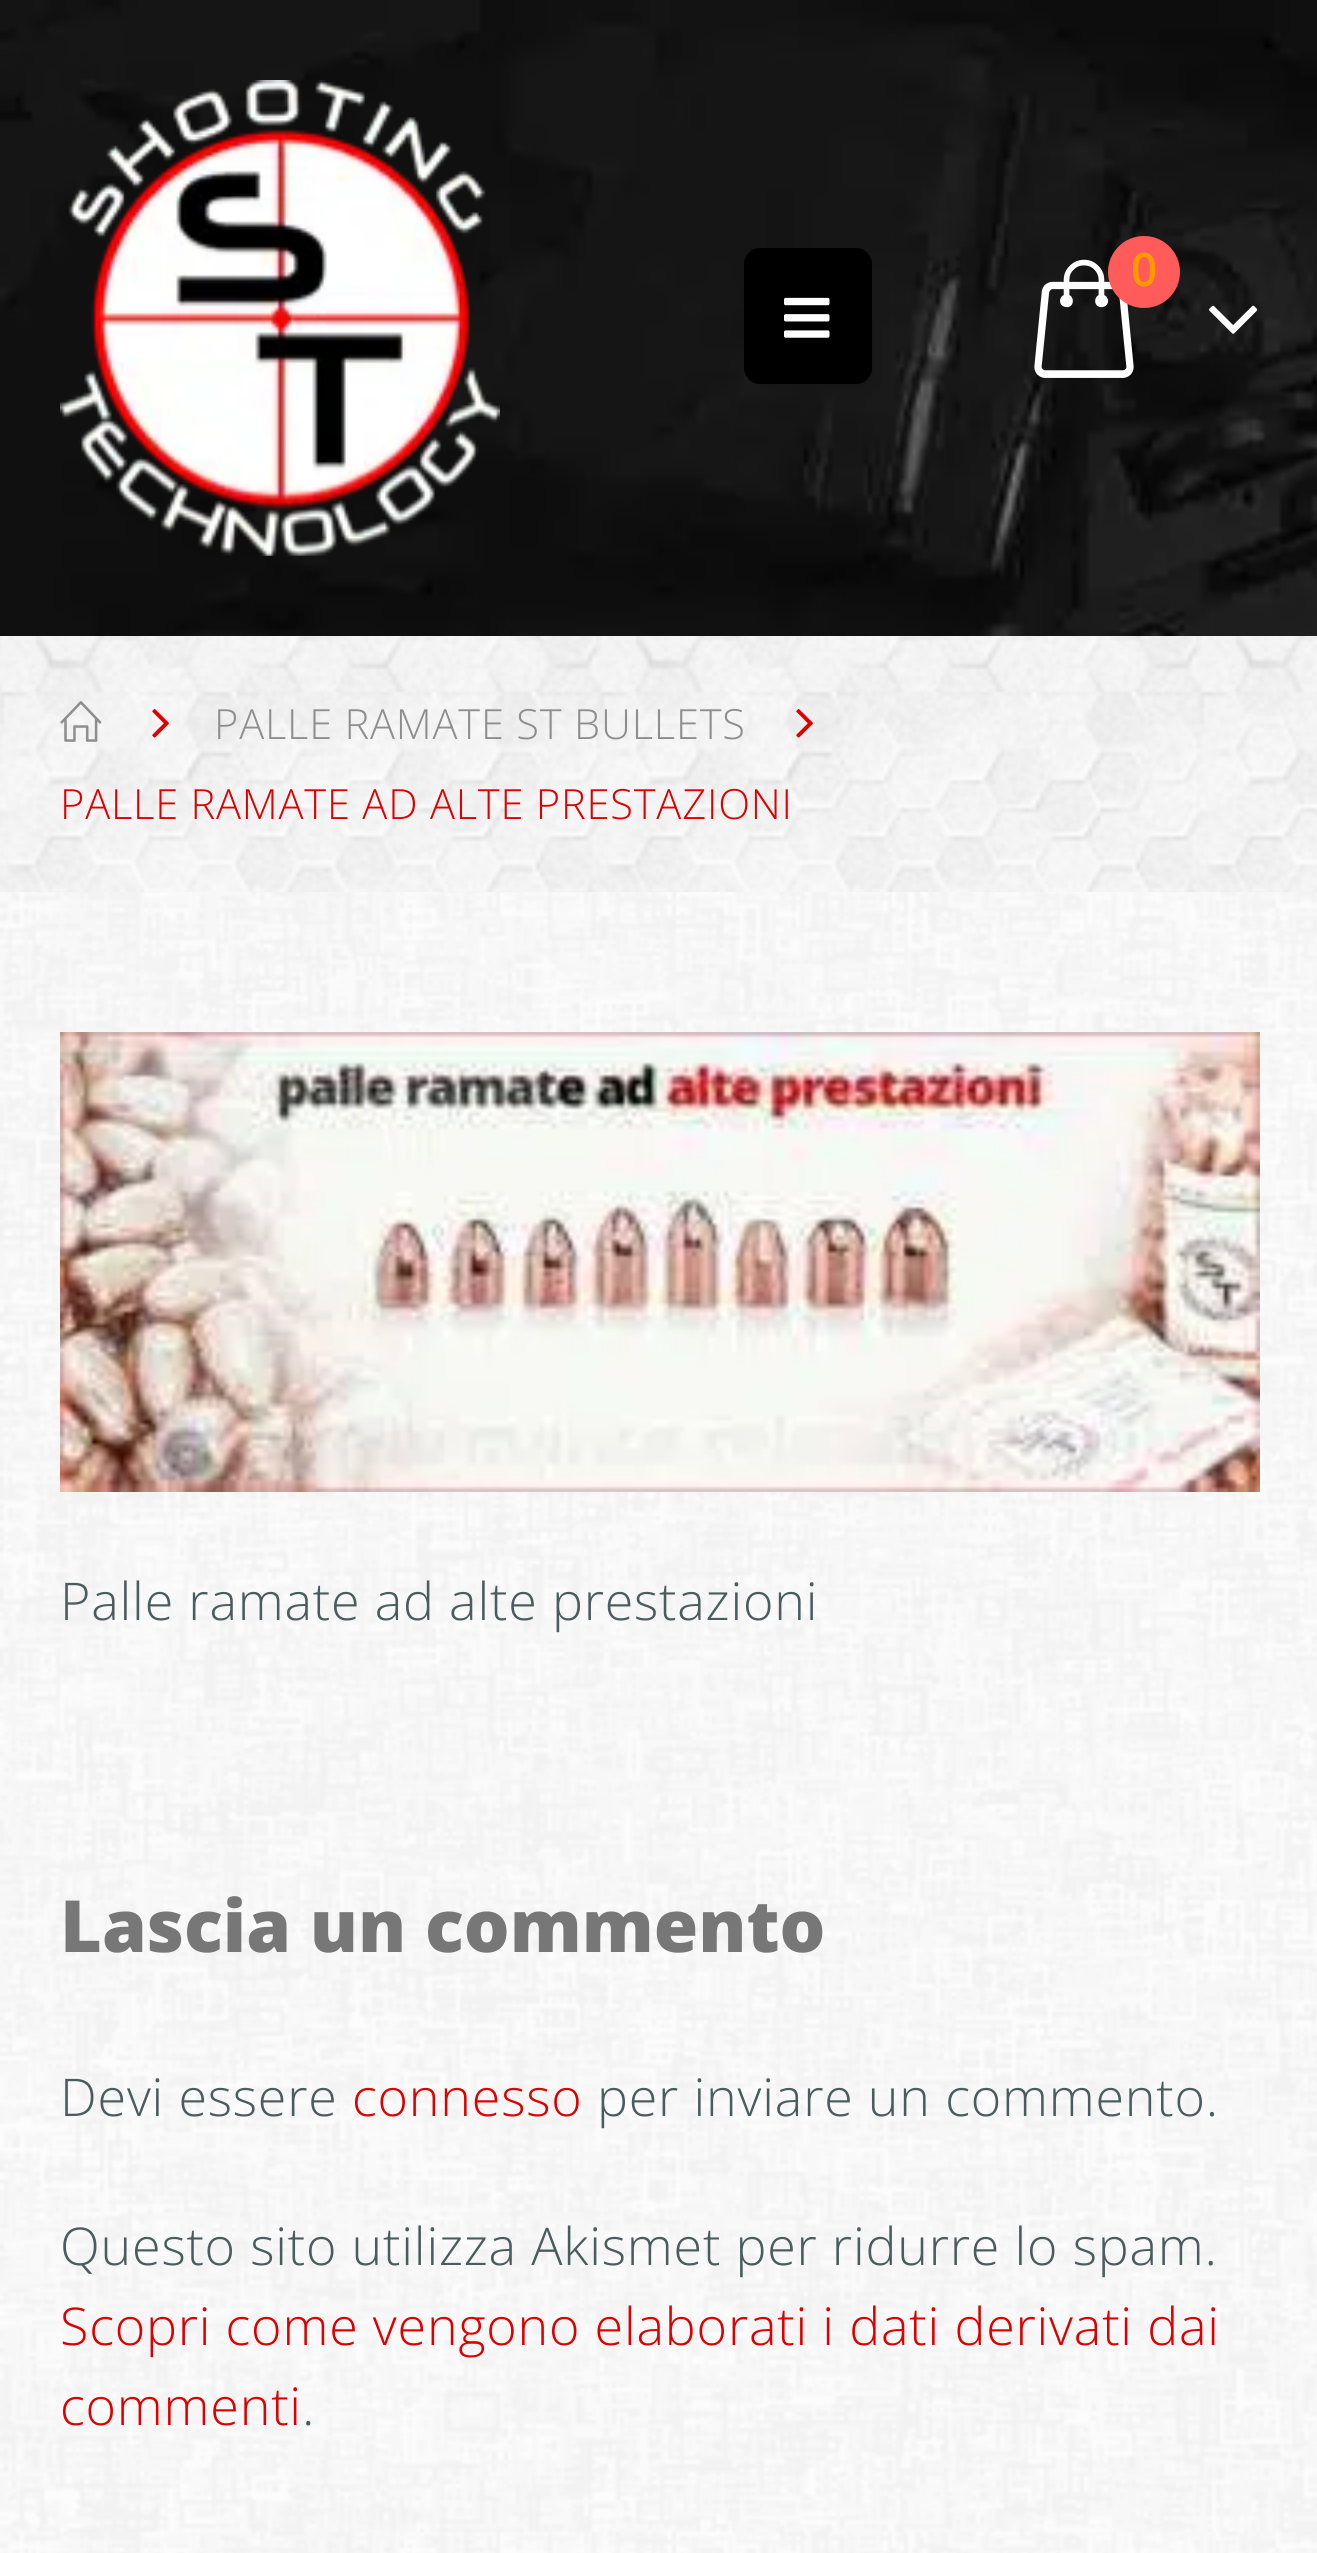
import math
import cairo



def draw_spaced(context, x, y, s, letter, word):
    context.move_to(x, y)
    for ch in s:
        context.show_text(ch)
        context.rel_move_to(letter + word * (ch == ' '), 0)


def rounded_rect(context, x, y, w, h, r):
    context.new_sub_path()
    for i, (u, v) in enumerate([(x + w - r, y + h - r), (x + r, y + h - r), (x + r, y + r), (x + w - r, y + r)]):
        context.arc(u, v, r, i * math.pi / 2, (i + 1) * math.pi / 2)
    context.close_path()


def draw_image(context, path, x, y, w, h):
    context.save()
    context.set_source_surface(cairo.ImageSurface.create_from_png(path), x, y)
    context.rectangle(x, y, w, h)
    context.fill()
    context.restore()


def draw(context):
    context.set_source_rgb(1, 1, 1)
    context.paint()
    draw_image(context, "images/1.png", 0, 636, 1317, 256)
    draw_image(context, "images/2.png", 0, 0, 1317, 636)
    draw_image(context, "images/3.png", 60, 80, 440, 476)
    context.set_source_rgb(0, 0, 0)
    rounded_rect(context, 744, 248, 128, 136, 16)
    context.fill()
    draw_image(context, "images/4.png", 784, 297, 46, 41)
    draw_image(context, "images/5.png", 1034, 259, 100, 119)
    context.set_source_rgb(1, 91 / 255, 91 / 255)
    context.arc(1144, 272, 36, 0, 2 * math.pi)
    context.fill()
    draw_image(context, "images/6.png", 1209, 305, 49, 29)
    draw_image(context, "images/7.png", 60, 701, 42, 41)
    draw_image(context, "images/8.png", 152, 709, 17, 29)
    draw_image(context, "images/9.png", 796, 709, 17, 29)
    draw_image(context, "images/10.png", 0, 892, 1317, 1661)
    draw_image(context, "images/11.png", 60, 1032, 1200, 460)
    context.select_font_face("Open Sans SemiBold")
    context.set_font_size(46)
    context.set_source_rgb(1, 153 / 255, 0)
    draw_spaced(context, 1131, 286, "0", 0.8, 0)
    context.select_font_face("Open Sans Light")
    context.set_font_size(41.6)
    context.set_source_rgb(142 / 255, 142 / 255, 142 / 255)
    draw_spaced(context, 214, 739, "PALLE RAMATE ST BULLETS", 0.8, 0)
    context.set_source_rgb(221 / 255, 0, 0)
    draw_spaced(context, 60, 819, "PALLE RAMATE AD ALTE PRESTAZIONI", 0.8, 0)
    context.set_font_size(52)
    context.set_source_rgb(74 / 255, 92 / 255, 94 / 255)
    draw_spaced(context, 60, 1620, "Palle ramate ad alte prestazioni", 0.8, 0)
    context.select_font_face("Open Sans ExtraBold")
    context.set_font_size(72)
    context.set_source_rgb(119 / 255, 119 / 255, 119 / 255)
    context.move_to(60, 1952)
    context.show_text("Lascia un commento")
    context.select_font_face("Open Sans Light")
    context.set_font_size(52)
    context.set_source_rgb(74 / 255, 92 / 255, 94 / 255)
    draw_spaced(context, 60, 2116, "Devi essere", 0.8, 0)
    context.set_source_rgb(221 / 255, 0, 0)
    draw_spaced(context, 352, 2116, "connesso", 0.8, 0)
    context.set_source_rgb(74 / 255, 92 / 255, 94 / 255)
    draw_spaced(context, 597, 2116, "per inviare un commento.", 0.8, 0)
    draw_spaced(context, 60, 2265, "Questo sito utilizza Akismet per ridurre lo spam.", 0.8, 0)
    context.set_source_rgb(221 / 255, 0, 0)
    draw_spaced(context, 60, 2345, "Scopri come vengono elaborati i dati derivati dai", 0.8, 0)
    draw_spaced(context, 60, 2425, "commenti", 0.8, 0)
    context.set_source_rgb(74 / 255, 92 / 255, 94 / 255)
    draw_spaced(context, 302, 2425, ".", 0.8, 0)


surface = cairo.ImageSurface(cairo.Format.RGB24, 1317, 2553)
context = cairo.Context(surface)
options = cairo.FontOptions()
options.set_hint_metrics(cairo.HintMetrics.OFF)
options.set_hint_style(cairo.HintStyle.NONE)
context.set_font_options(options)
context.set_miter_limit(4)
draw(context)
surface.write_to_png("out.png")
